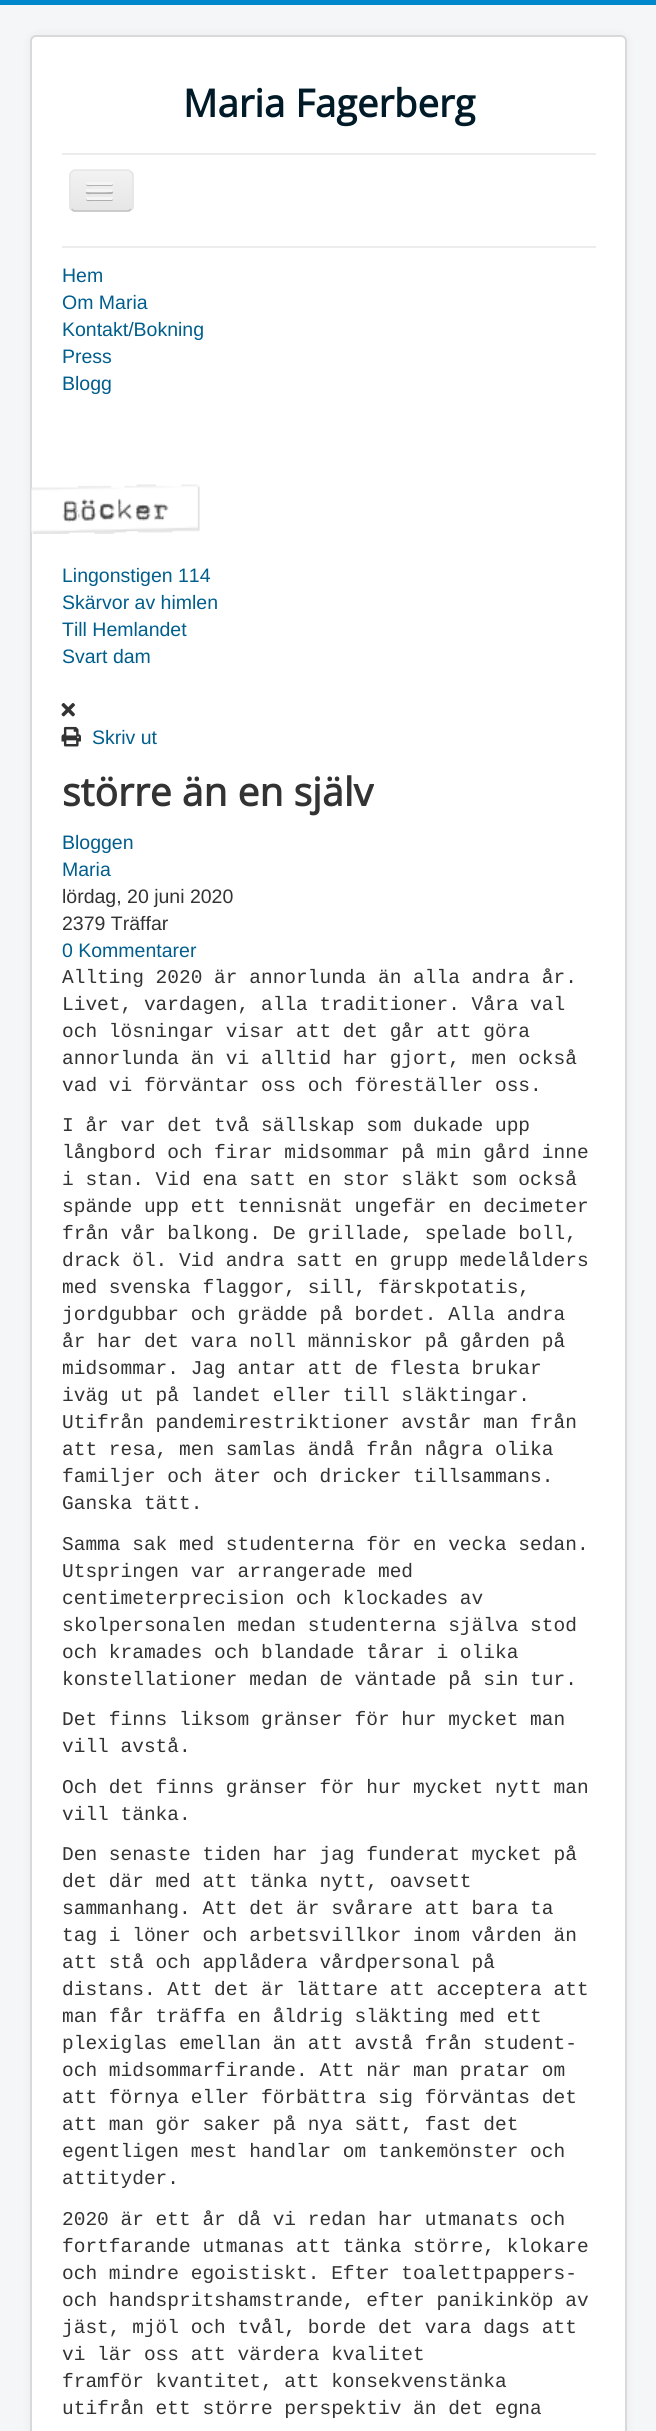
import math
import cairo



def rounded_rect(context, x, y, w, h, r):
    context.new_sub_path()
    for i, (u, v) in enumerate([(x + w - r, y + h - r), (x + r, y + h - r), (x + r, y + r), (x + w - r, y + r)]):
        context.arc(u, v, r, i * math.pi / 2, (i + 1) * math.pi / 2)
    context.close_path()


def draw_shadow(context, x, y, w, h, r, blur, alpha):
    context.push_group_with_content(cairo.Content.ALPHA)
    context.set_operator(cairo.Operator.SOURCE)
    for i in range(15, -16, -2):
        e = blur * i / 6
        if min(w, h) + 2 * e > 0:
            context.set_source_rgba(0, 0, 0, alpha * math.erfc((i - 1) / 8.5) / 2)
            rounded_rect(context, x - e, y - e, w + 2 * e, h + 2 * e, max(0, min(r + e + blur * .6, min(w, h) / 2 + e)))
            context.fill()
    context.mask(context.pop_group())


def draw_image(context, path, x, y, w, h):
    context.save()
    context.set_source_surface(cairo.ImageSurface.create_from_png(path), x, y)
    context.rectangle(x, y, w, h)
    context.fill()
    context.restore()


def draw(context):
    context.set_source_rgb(244 / 255, 246 / 255, 247 / 255)
    context.paint()
    context.set_source_rgb(0, 136 / 255, 204 / 255)
    context.rectangle(0, 0, 656, 5)
    context.fill()
    context.set_source_rgb(0, 0, 0)
    draw_shadow(context, 30, 35, 597, 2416, 6, 4.5, 0.05)
    context.set_source_rgb(1, 1, 1)
    rounded_rect(context, 30, 35, 597, 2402, 6)
    context.fill()
    rounded_rect(context, 31, 36, 595, 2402, 5)
    context.set_source_rgba(0, 0, 0, 0.15)
    context.stroke()
    context.set_source_rgb(236 / 255, 236 / 255, 236 / 255)
    context.rectangle(62, 153, 534, 2)
    context.fill()
    context.rectangle(62, 246, 534, 2)
    context.fill()
    context.set_source_rgb(237 / 255, 237 / 255, 237 / 255)
    rounded_rect(context, 69, 170, 65, 42, 6)
    context.fill()
    context.save()
    rounded_rect(context, 69, 170, 65, 42, 6)
    context.clip()
    gradient = cairo.LinearGradient(101, 171, 101, 210)
    gradient.add_color_stop_rgba(0, 242 / 255, 242 / 255, 242 / 255, 1)
    gradient.add_color_stop_rgba(1, 230 / 255, 230 / 255, 230 / 255, 1)
    context.set_source(gradient)
    context.rectangle(69, 171, 65, 39)
    context.fill()
    context.restore()
    context.new_path()
    context.move_to(131, 209)
    context.curve_to(130, 210, 129, 211, 127.5, 211)
    context.line_to(75, 211)
    context.curve_to(73.5, 211, 72.5, 210, 71.5, 209)
    context.set_source_rgb(191 / 255, 191 / 255, 191 / 255)
    context.set_line_width(1.5)
    context.stroke()
    context.new_path()
    context.move_to(71.5, 209)
    context.curve_to(70.5, 208, 70, 207, 70, 205.5)
    context.line_to(70, 175.5)
    context.curve_to(70, 174, 70.5, 173, 71.5, 172)
    context.curve_to(72.5, 171, 73.5, 170, 75, 170)
    context.line_to(127.5, 170)
    context.curve_to(129, 170, 130, 171, 131, 172)
    context.curve_to(132, 173, 133, 174, 133, 175.5)
    context.line_to(133, 205.5)
    context.curve_to(133, 207, 132, 208, 131, 209)
    context.set_source_rgb(230 / 255, 230 / 255, 230 / 255)
    context.stroke()
    context.set_source_rgb(179 / 255, 179 / 255, 179 / 255)
    context.new_path()
    context.move_to(86, 184)
    context.curve_to(85.5, 187, 91, 186, 91.5, 186)
    context.line_to(111.5, 186)
    context.curve_to(113, 186, 113.5, 184, 112.5, 183.5)
    context.line_to(111.5, 184.5)
    context.curve_to(110, 185, 86.5, 184.5, 86, 184)
    context.close_path()
    context.fill()
    context.set_source_rgb(245 / 255, 245 / 255, 245 / 255)
    rounded_rect(context, 86, 182, 27, 3, 1.5)
    context.fill()
    context.set_source_rgb(176 / 255, 176 / 255, 176 / 255)
    context.new_path()
    context.move_to(86, 192)
    context.curve_to(84.5, 195, 91.5, 194, 91.5, 194)
    context.line_to(112, 194)
    context.curve_to(113, 193.5, 113.5, 192, 112.5, 191)
    context.line_to(111, 192)
    context.curve_to(109, 192.5, 87, 192.5, 86, 192)
    context.close_path()
    context.fill()
    context.set_source_rgb(245 / 255, 245 / 255, 245 / 255)
    rounded_rect(context, 86, 189, 27, 3, 1.5)
    context.fill()
    context.set_source_rgb(175 / 255, 175 / 255, 175 / 255)
    context.new_path()
    context.move_to(86, 199)
    context.curve_to(85.5, 202, 91, 201, 91.5, 201)
    context.line_to(111.5, 201)
    context.curve_to(113, 201, 113.5, 199, 112.5, 198.5)
    context.line_to(111.5, 199.5)
    context.curve_to(110, 200, 86.5, 199.5, 86, 199)
    context.close_path()
    context.fill()
    context.set_source_rgb(245 / 255, 245 / 255, 245 / 255)
    rounded_rect(context, 86, 197, 27, 3, 1.5)
    context.fill()
    draw_image(context, "images/1.png", 31, 484, 169, 50)
    draw_image(context, "images/2.png", 61, 703, 14, 14)
    draw_image(context, "images/3.png", 61, 726, 20, 21)
    context.select_font_face("Open Sans", cairo.FontSlant.NORMAL, cairo.FontWeight.BOLD)
    context.set_font_size(38.25)
    context.set_source_rgb(0, 26 / 255, 39 / 255)
    context.move_to(183, 117)
    context.show_text("Maria Fagerberg")
    context.select_font_face("Liberation Sans")
    context.set_font_size(19.5)
    context.set_source_rgb(0, 94 / 255, 141 / 255)
    context.move_to(62, 282)
    context.show_text("Hem")
    context.move_to(62, 309)
    context.show_text("Om Maria")
    context.move_to(62, 336)
    context.show_text("Kontakt/Bokning")
    context.move_to(62, 363)
    context.show_text("Press")
    context.move_to(62, 390)
    context.show_text("Blogg")
    context.move_to(62, 582)
    context.show_text("Lingonstigen 114")
    context.move_to(62, 609)
    context.show_text("Skärvor av himlen")
    context.move_to(62, 636)
    context.show_text("Till Hemlandet")
    context.move_to(62, 663)
    context.show_text("Svart dam")
    context.move_to(92, 744)
    context.show_text("Skriv ut")
    context.select_font_face("Open Sans", cairo.FontSlant.NORMAL, cairo.FontWeight.BOLD)
    context.set_font_size(39)
    context.set_source_rgb(51 / 255, 51 / 255, 51 / 255)
    context.move_to(62, 806)
    context.show_text("större än en själv")
    context.select_font_face("Liberation Sans")
    context.set_font_size(19.5)
    context.set_source_rgb(0, 94 / 255, 141 / 255)
    context.move_to(62, 849)
    context.show_text("Bloggen")
    context.move_to(62, 876)
    context.show_text("Maria")
    context.set_source_rgb(51 / 255, 51 / 255, 51 / 255)
    context.move_to(62, 903)
    context.show_text("lördag, 20 juni 2020")
    context.move_to(62, 930)
    context.show_text("2379 Träffar")
    context.set_source_rgb(0, 94 / 255, 141 / 255)
    context.move_to(62, 957)
    context.show_text("0 Kommentarer")
    context.select_font_face("Liberation Mono")
    context.set_source_rgb(51 / 255, 51 / 255, 51 / 255)
    context.move_to(62, 983)
    context.show_text("Allting 2020 är annorlunda än alla andra år.")
    context.move_to(62, 1010)
    context.show_text("Livet, vardagen, alla traditioner. Våra val")
    context.move_to(62, 1037)
    context.show_text("och lösningar visar att det går att göra")
    context.move_to(62, 1064)
    context.show_text("annorlunda än vi alltid har gjort, men också")
    context.move_to(62, 1091)
    context.show_text("vad vi förväntar oss och föreställer oss.")
    context.move_to(62, 1131)
    context.show_text("I år var det två sällskap som dukade upp")
    context.move_to(62, 1158)
    context.show_text("långbord och firar midsommar på min gård inne")
    context.move_to(62, 1185)
    context.show_text("i stan. Vid ena satt en stor släkt som också")
    context.move_to(62, 1212)
    context.show_text("spände upp ett tennisnät ungefär en decimeter")
    context.move_to(62, 1239)
    context.show_text("från vår balkong. De grillade, spelade boll,")
    context.move_to(62, 1266)
    context.show_text("drack öl. Vid andra satt en grupp medelålders")
    context.move_to(62, 1293)
    context.show_text("med svenska flaggor, sill, färskpotatis,")
    context.move_to(62, 1320)
    context.show_text("jordgubbar och grädde på bordet. Alla andra")
    context.move_to(62, 1347)
    context.show_text("år har det vara noll människor på gården på")
    context.move_to(62, 1374)
    context.show_text("midsommar. Jag antar att de flesta brukar")
    context.move_to(62, 1401)
    context.show_text("iväg ut på landet eller till släktingar.")
    context.move_to(62, 1428)
    context.show_text("Utifrån pandemirestriktioner avstår man från")
    context.move_to(62, 1455)
    context.show_text("att resa, men samlas ändå från några olika")
    context.move_to(62, 1482)
    context.show_text("familjer och äter och dricker tillsammans.")
    context.move_to(62, 1509)
    context.show_text("Ganska tätt.")
    context.move_to(62, 1550)
    context.show_text("Samma sak med studenterna för en vecka sedan.")
    context.move_to(62, 1577)
    context.show_text("Utspringen var arrangerade med")
    context.move_to(62, 1604)
    context.show_text("centimeterprecision och klockades av")
    context.move_to(62, 1631)
    context.show_text("skolpersonalen medan studenterna själva stod")
    context.move_to(62, 1658)
    context.show_text("och kramades och blandade tårar i olika")
    context.move_to(62, 1685)
    context.show_text("konstellationer medan de väntade på sin tur.")
    context.move_to(62, 1725)
    context.show_text("Det finns liksom gränser för hur mycket man")
    context.move_to(62, 1752)
    context.show_text("vill avstå.")
    context.move_to(62, 1793)
    context.show_text("Och det finns gränser för hur mycket nytt man")
    context.move_to(62, 1820)
    context.show_text("vill tänka.")
    context.move_to(62, 1860)
    context.show_text("Den senaste tiden har jag funderat mycket på")
    context.move_to(62, 1887)
    context.show_text("det där med att tänka nytt, oavsett")
    context.move_to(62, 1914)
    context.show_text("sammanhang. Att det är svårare att bara ta")
    context.move_to(62, 1941)
    context.show_text("tag i löner och arbetsvillkor inom vården än")
    context.move_to(62, 1968)
    context.show_text("att stå och applådera vårdpersonal på")
    context.move_to(62, 1995)
    context.show_text("distans. Att det är lättare att acceptera att")
    context.move_to(62, 2022)
    context.show_text("man får träffa en åldrig släkting med ett")
    context.move_to(62, 2049)
    context.show_text("plexiglas emellan än att avstå från student-")
    context.move_to(62, 2076)
    context.show_text("och midsommarfirande. Att när man pratar om")
    context.move_to(62, 2103)
    context.show_text("att förnya eller förbättra sig förväntas det")
    context.move_to(62, 2130)
    context.show_text("att man gör saker på nya sätt, fast det")
    context.move_to(62, 2157)
    context.show_text("egentligen mest handlar om tankemönster och")
    context.move_to(62, 2184)
    context.show_text("attityder.")
    context.move_to(62, 2225)
    context.show_text("2020 är ett år då vi redan har utmanats och")
    context.move_to(62, 2252)
    context.show_text("fortfarande utmanas att tänka större, klokare")
    context.move_to(62, 2279)
    context.show_text("och mindre egoistiskt. Efter toalettpappers-")
    context.move_to(62, 2306)
    context.show_text("och handspritshamstrande, efter panikinköp av")
    context.move_to(62, 2333)
    context.show_text("jäst, mjöl och tvål, borde det vara dags att")
    context.move_to(62, 2360)
    context.show_text("vi lär oss att värdera kvalitet")
    context.move_to(62, 2387)
    context.show_text("framför kvantitet, att konsekvenstänka")
    context.move_to(62, 2414)
    context.show_text("utifrån ett större perspektiv än det egna")


surface = cairo.ImageSurface(cairo.Format.RGB24, 656, 2431)
context = cairo.Context(surface)
options = cairo.FontOptions()
options.set_hint_metrics(cairo.HintMetrics.OFF)
options.set_hint_style(cairo.HintStyle.NONE)
context.set_font_options(options)
context.set_miter_limit(4)
draw(context)
surface.write_to_png("out.png")
